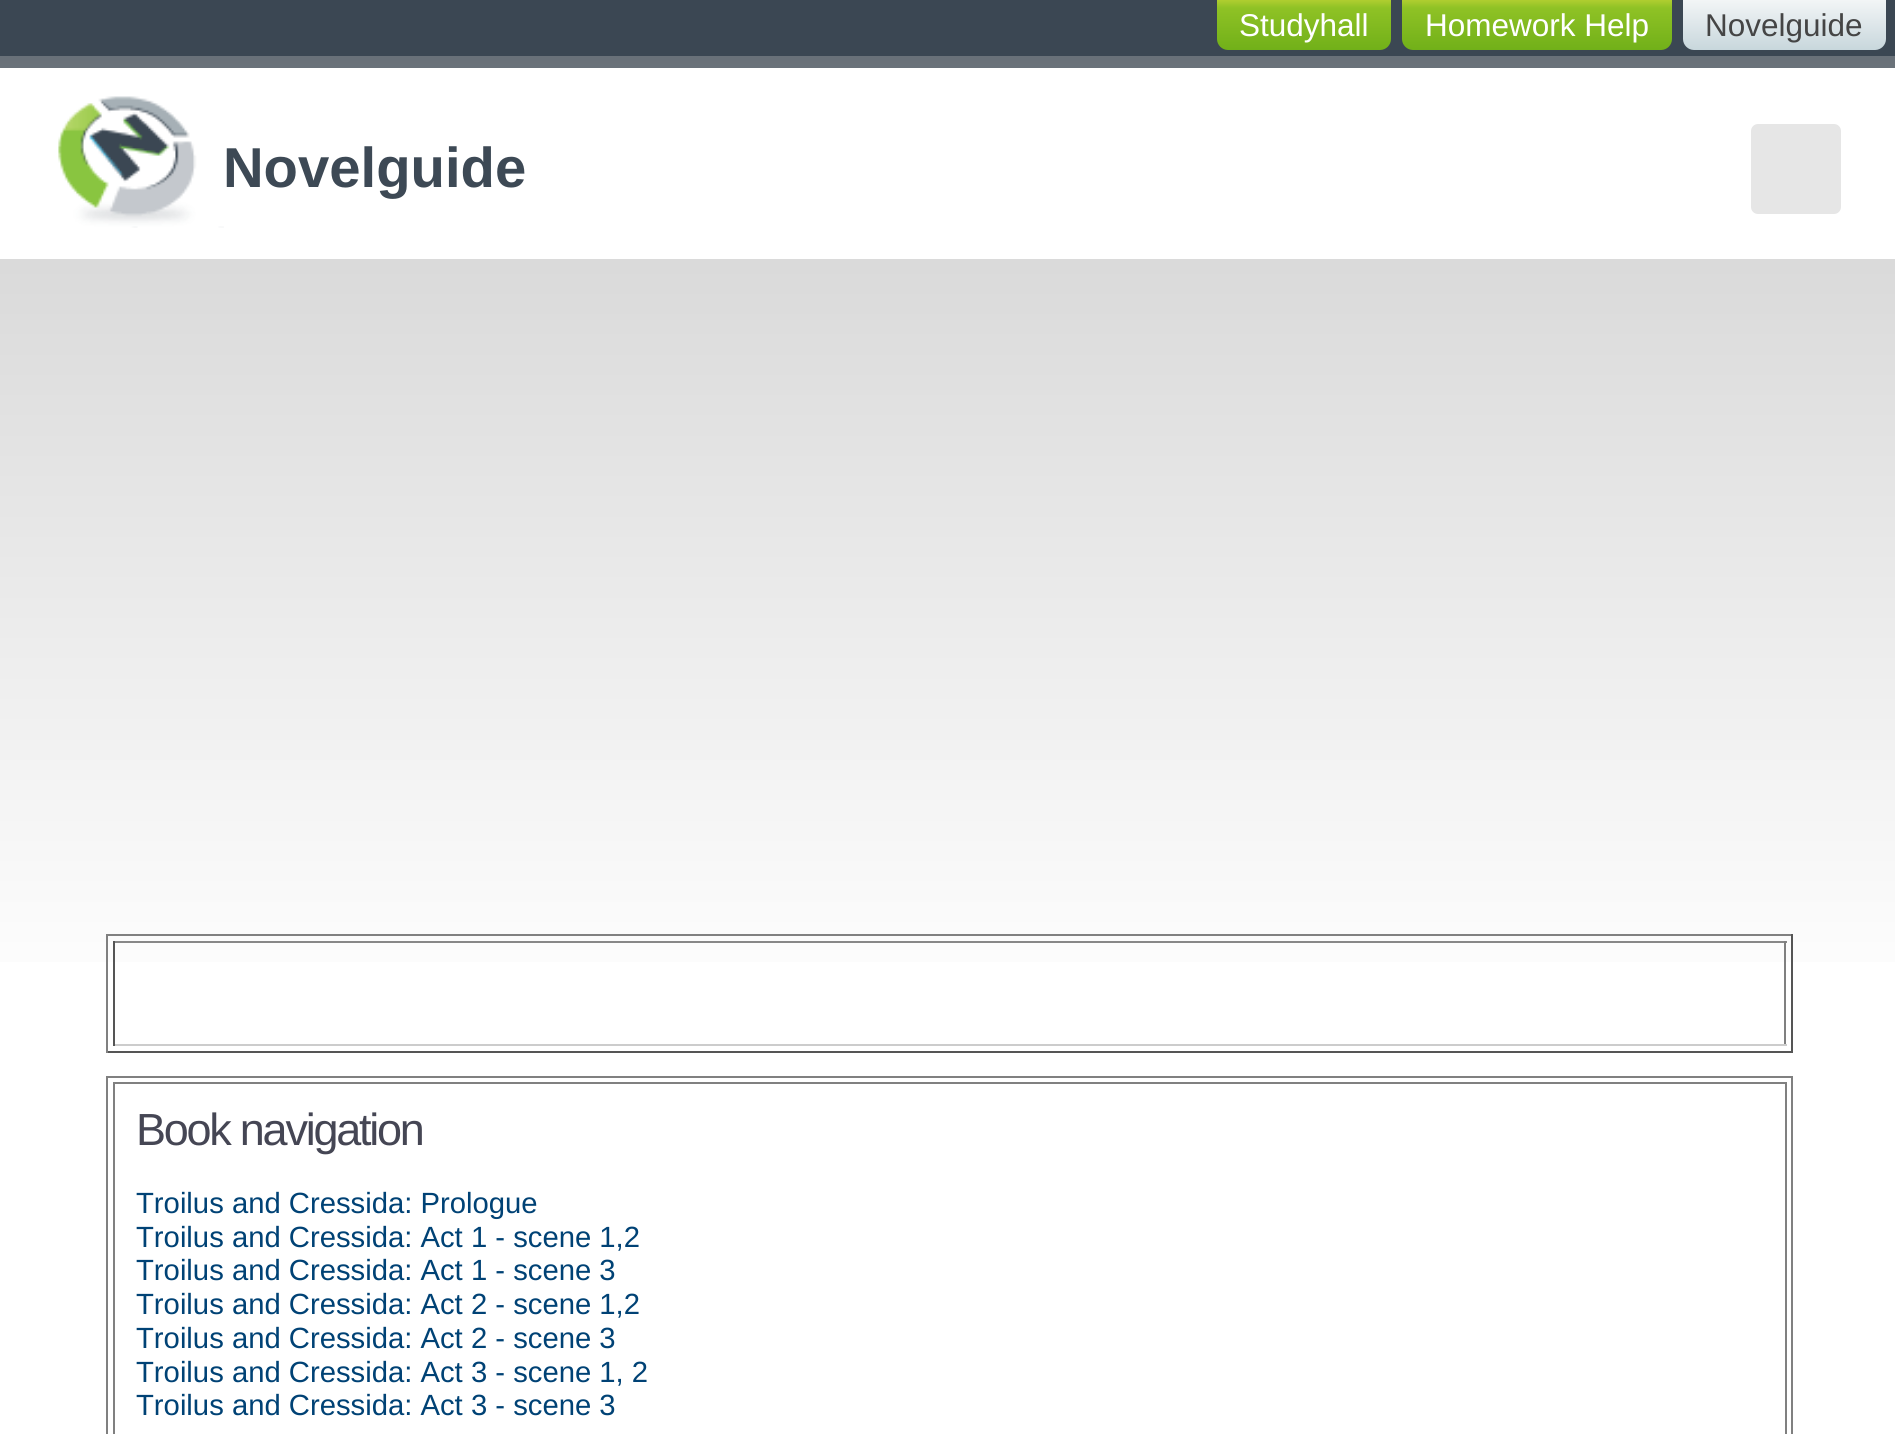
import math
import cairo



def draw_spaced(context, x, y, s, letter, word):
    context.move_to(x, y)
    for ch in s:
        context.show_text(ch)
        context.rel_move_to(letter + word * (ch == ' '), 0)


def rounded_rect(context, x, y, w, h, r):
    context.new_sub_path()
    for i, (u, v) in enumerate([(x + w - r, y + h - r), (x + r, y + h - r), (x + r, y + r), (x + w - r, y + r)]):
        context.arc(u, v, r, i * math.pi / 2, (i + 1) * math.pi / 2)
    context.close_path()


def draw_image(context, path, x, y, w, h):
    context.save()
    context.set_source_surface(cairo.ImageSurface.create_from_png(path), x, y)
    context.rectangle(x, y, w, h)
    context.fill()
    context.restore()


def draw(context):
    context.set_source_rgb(1, 1, 1)
    context.paint()
    context.set_source_rgb(59 / 255, 71 / 255, 83 / 255)
    context.rectangle(0, 0, 1895, 56)
    context.fill()
    gradient = cairo.LinearGradient(1304, 0, 1304, 50)
    gradient.add_color_stop_rgba(0, 176 / 255, 206 / 255, 48 / 255, 1)
    gradient.add_color_stop_rgba(0.16, 143 / 255, 194 / 255, 37 / 255, 1)
    gradient.add_color_stop_rgba(1, 113 / 255, 176 / 255, 25 / 255, 1)
    context.set_source(gradient)
    context.new_path()
    context.move_to(1217, 0)
    context.line_to(1391, 0)
    context.line_to(1391, 39)
    context.curve_to(1391, 45, 1386, 50, 1380, 50)
    context.line_to(1228, 50)
    context.curve_to(1222, 50, 1217, 45, 1217, 39)
    context.close_path()
    context.fill()
    gradient = cairo.LinearGradient(1537, 0, 1537, 50)
    gradient.add_color_stop_rgba(0, 176 / 255, 206 / 255, 48 / 255, 1)
    gradient.add_color_stop_rgba(0.16, 143 / 255, 194 / 255, 37 / 255, 1)
    gradient.add_color_stop_rgba(1, 113 / 255, 176 / 255, 25 / 255, 1)
    context.set_source(gradient)
    context.new_path()
    context.move_to(1402, 0)
    context.line_to(1672, 0)
    context.line_to(1672, 39)
    context.curve_to(1672, 45, 1667, 50, 1661, 50)
    context.line_to(1413, 50)
    context.curve_to(1407, 50, 1402, 45, 1402, 39)
    context.close_path()
    context.fill()
    gradient = cairo.LinearGradient(1784, 0, 1784, 50)
    gradient.add_color_stop_rgba(0, 242 / 255, 245 / 255, 246 / 255, 1)
    gradient.add_color_stop_rgba(0.37, 227 / 255, 234 / 255, 237 / 255, 1)
    gradient.add_color_stop_rgba(1, 200 / 255, 215 / 255, 220 / 255, 1)
    context.set_source(gradient)
    context.new_path()
    context.move_to(1683, 0)
    context.line_to(1886, 0)
    context.line_to(1886, 39)
    context.curve_to(1886, 45, 1881, 50, 1875, 50)
    context.line_to(1694, 50)
    context.curve_to(1688, 50, 1683, 45, 1683, 39)
    context.close_path()
    context.fill()
    gradient = cairo.LinearGradient(948, 0, 948, 1013)
    gradient.add_color_stop_rgba(0, 99 / 255, 106 / 255, 116 / 255, 1)
    gradient.add_color_stop_rgba(0.24, 125 / 255, 135 / 255, 137 / 255, 1)
    gradient.add_color_stop_rgba(0.24, 217 / 255, 217 / 255, 217 / 255, 1)
    gradient.add_color_stop_rgba(1, 1, 1, 1, 1)
    context.set_source(gradient)
    context.rectangle(0, 56, 1895, 906)
    context.fill()
    context.set_source_rgb(1, 1, 1)
    context.rectangle(0, 68, 1895, 191)
    context.fill()
    context.set_source_rgb(230 / 255, 230 / 255, 230 / 255)
    rounded_rect(context, 1751, 124, 90, 90, 7)
    context.fill()
    draw_image(context, "images/1.png", 58, 96, 166, 132)
    context.set_source_rgb(128 / 255, 128 / 255, 128 / 255)
    context.rectangle(106, 934, 1687, 2)
    context.fill()
    context.set_source_rgb(85 / 255, 85 / 255, 85 / 255)
    context.rectangle(1791, 934, 2, 119)
    context.fill()
    context.rectangle(106, 1051, 1687, 2)
    context.fill()
    context.set_source_rgb(128 / 255, 128 / 255, 128 / 255)
    context.rectangle(106, 934, 2, 119)
    context.fill()
    context.set_source_rgb(136 / 255, 136 / 255, 136 / 255)
    context.rectangle(113, 941, 1674, 2)
    context.fill()
    context.set_source_rgb(128 / 255, 128 / 255, 128 / 255)
    context.rectangle(1784, 941, 2, 105)
    context.fill()
    context.set_source_rgb(204 / 255, 204 / 255, 204 / 255)
    context.rectangle(113, 1044, 1674, 2)
    context.fill()
    context.set_source_rgb(85 / 255, 85 / 255, 85 / 255)
    context.rectangle(113, 941, 2, 105)
    context.fill()
    context.rectangle(107, 1077, 1685, 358)
    context.set_source_rgb(128 / 255, 128 / 255, 128 / 255)
    context.stroke()
    context.rectangle(114, 1083, 1672, 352)
    context.stroke()
    context.select_font_face("Liberation Sans")
    context.set_font_size(31.5)
    context.set_source_rgb(1, 1, 1)
    context.move_to(1239, 36)
    context.show_text("Studyhall")
    context.move_to(1425, 36)
    context.show_text("Homework Help")
    context.set_source_rgb(69 / 255, 69 / 255, 69 / 255)
    context.move_to(1705, 36)
    context.show_text("Novelguide")
    context.select_font_face("Liberation Sans", cairo.FontSlant.NORMAL, cairo.FontWeight.BOLD)
    context.set_font_size(56.25)
    context.set_source_rgb(61 / 255, 73 / 255, 85 / 255)
    context.move_to(223, 187)
    context.show_text("Novelguide")
    context.select_font_face("Liberation Sans")
    context.set_font_size(45)
    context.set_source_rgb(69 / 255, 70 / 255, 84 / 255)
    draw_spaced(context, 136, 1145, "Book navigation", -2.25, 0)
    context.set_font_size(29.25)
    context.set_source_rgb(0, 66 / 255, 117 / 255)
    context.move_to(136, 1213)
    context.show_text("Troilus and Cressida: Prologue")
    context.move_to(136, 1247)
    context.show_text("Troilus and Cressida: Act 1 - scene 1,2")
    context.move_to(136, 1280)
    context.show_text("Troilus and Cressida: Act 1 - scene 3")
    context.move_to(136, 1314)
    context.show_text("Troilus and Cressida: Act 2 - scene 1,2")
    context.move_to(136, 1348)
    context.show_text("Troilus and Cressida: Act 2 - scene 3")
    context.move_to(136, 1382)
    context.show_text("Troilus and Cressida: Act 3 - scene 1, 2")
    context.move_to(136, 1415)
    context.show_text("Troilus and Cressida: Act 3 - scene 3")


surface = cairo.ImageSurface(cairo.Format.RGB24, 1895, 1434)
context = cairo.Context(surface)
options = cairo.FontOptions()
options.set_hint_metrics(cairo.HintMetrics.OFF)
options.set_hint_style(cairo.HintStyle.NONE)
context.set_font_options(options)
context.set_miter_limit(4)
draw(context)
surface.write_to_png("out.png")
